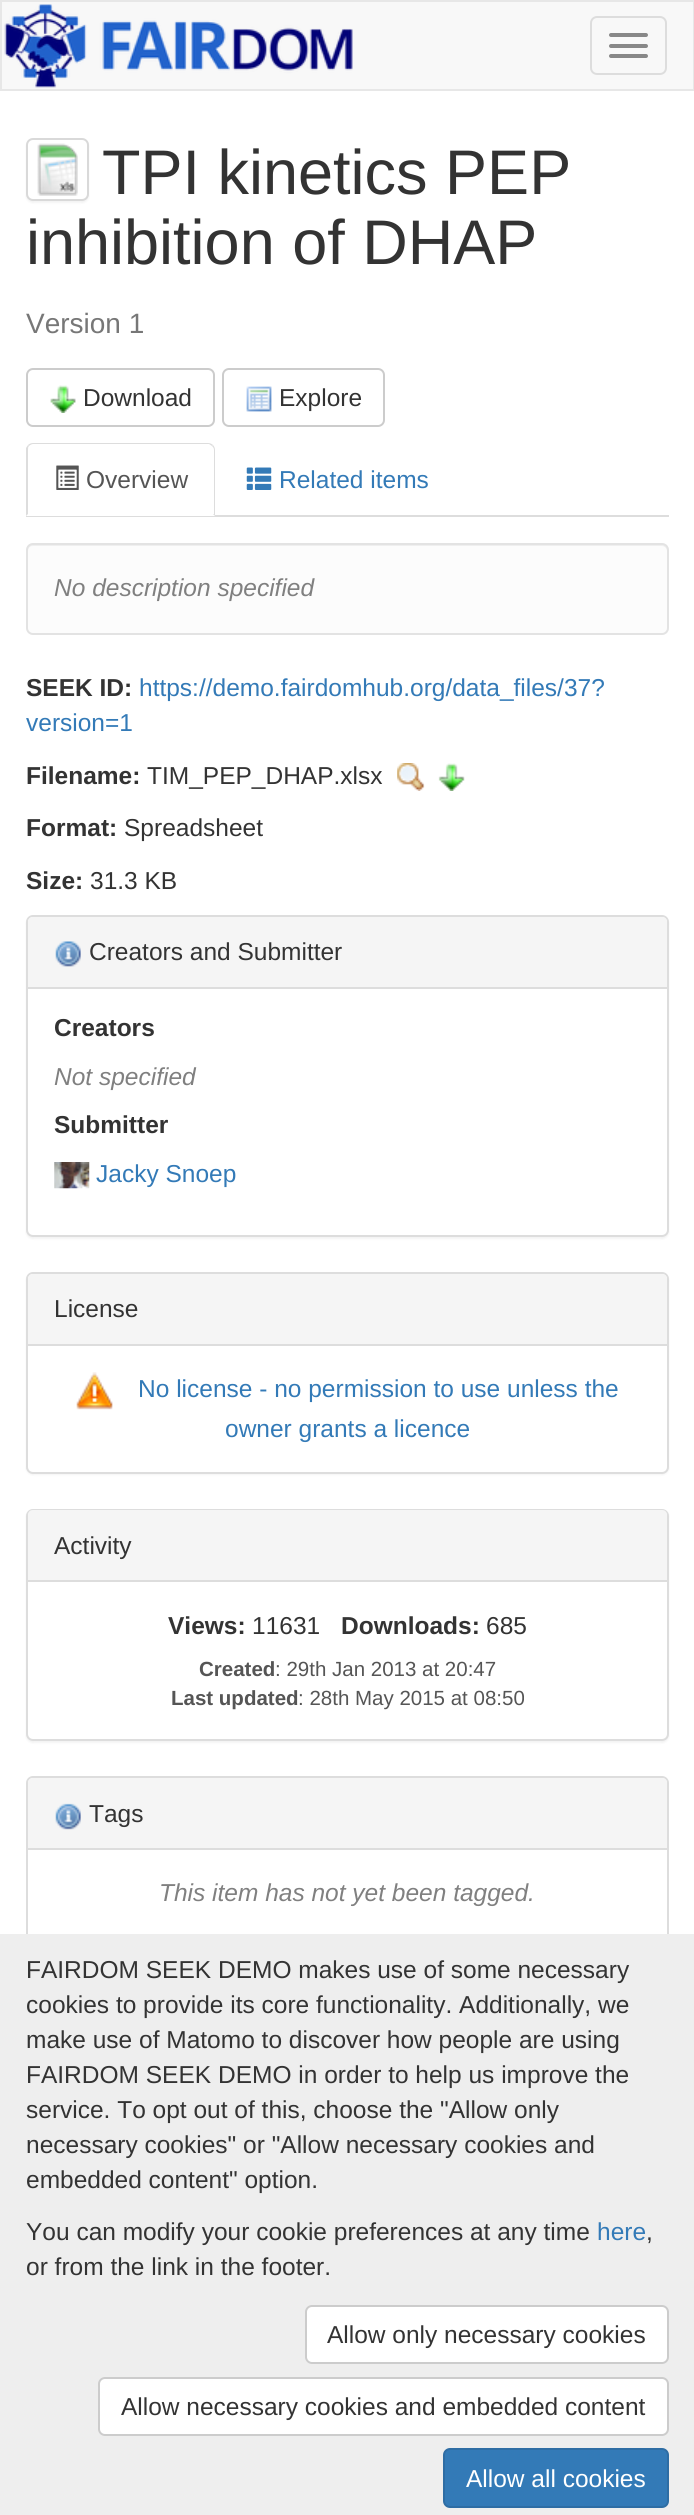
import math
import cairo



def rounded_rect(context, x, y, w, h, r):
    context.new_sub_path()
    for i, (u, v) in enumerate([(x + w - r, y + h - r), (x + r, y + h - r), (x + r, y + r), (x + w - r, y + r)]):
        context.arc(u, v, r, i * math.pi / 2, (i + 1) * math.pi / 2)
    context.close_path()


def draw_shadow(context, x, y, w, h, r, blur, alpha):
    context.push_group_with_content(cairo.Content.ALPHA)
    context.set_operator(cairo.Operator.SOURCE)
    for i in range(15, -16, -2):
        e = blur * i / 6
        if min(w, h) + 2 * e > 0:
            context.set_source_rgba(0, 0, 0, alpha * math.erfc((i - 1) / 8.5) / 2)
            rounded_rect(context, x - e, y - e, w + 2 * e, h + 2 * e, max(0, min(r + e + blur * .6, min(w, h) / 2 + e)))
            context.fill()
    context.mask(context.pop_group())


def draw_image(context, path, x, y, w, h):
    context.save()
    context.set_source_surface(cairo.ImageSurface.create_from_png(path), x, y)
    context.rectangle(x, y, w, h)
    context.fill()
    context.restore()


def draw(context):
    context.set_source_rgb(1, 1, 1)
    context.paint()
    context.set_source_rgb(248 / 255, 248 / 255, 248 / 255)
    context.rectangle(1, 1, 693, 89)
    context.fill_preserve()
    context.set_source_rgb(231 / 255, 231 / 255, 231 / 255)
    context.stroke()
    draw_image(context, "images/1.png", 4, 4, 349, 84)
    rounded_rect(context, 591, 17, 75, 57, 6)
    context.set_source_rgb(221 / 255, 221 / 255, 221 / 255)
    context.stroke()
    context.set_source_rgb(136 / 255, 136 / 255, 136 / 255)
    rounded_rect(context, 609, 33, 39, 4, 2)
    context.fill()
    rounded_rect(context, 609, 44, 39, 4, 2)
    context.fill()
    rounded_rect(context, 609, 54, 39, 4, 2)
    context.fill()
    context.set_source_rgb(0, 0, 0)
    draw_shadow(context, 26, 140, 63, 63, 7, 1, 0.05)
    context.set_source_rgb(1, 1, 1)
    rounded_rect(context, 27, 139, 61, 61, 6)
    context.fill_preserve()
    context.set_source_rgb(217 / 255, 217 / 255, 217 / 255)
    context.stroke()
    draw_image(context, "images/2.png", 37, 143, 41, 53)
    rounded_rect(context, 27, 369, 187, 57, 6)
    context.set_source_rgb(204 / 255, 204 / 255, 204 / 255)
    context.stroke()
    draw_image(context, "images/3.png", 50, 385, 26, 28)
    rounded_rect(context, 223, 369, 161, 57, 6)
    context.stroke()
    draw_image(context, "images/4.png", 246, 386, 26, 26)
    context.set_source_rgb(221 / 255, 221 / 255, 221 / 255)
    context.rectangle(26, 515, 643, 2)
    context.fill()
    context.set_source_rgb(1, 1, 1)
    context.new_path()
    context.move_to(33, 443)
    context.line_to(208, 443)
    context.curve_to(212, 443, 215, 446, 215, 450)
    context.line_to(215, 516)
    context.line_to(26, 516)
    context.line_to(26, 450)
    context.curve_to(26, 446, 29, 443, 33, 443)
    context.close_path()
    context.fill()
    context.set_source_rgb(221 / 255, 221 / 255, 221 / 255)
    context.new_path()
    context.move_to(33, 443)
    context.curve_to(31, 443, 29, 444, 28, 445)
    context.line_to(29, 446)
    context.curve_to(30, 445, 32, 444, 33, 444)
    context.line_to(209, 444)
    context.line_to(212, 446)
    context.line_to(213, 445)
    context.curve_to(212, 444, 210, 443, 208, 443)
    context.close_path()
    context.fill()
    context.new_path()
    context.move_to(215, 516)
    context.line_to(215, 450)
    context.curve_to(215, 448, 214, 446, 213, 445)
    context.line_to(212, 446)
    context.curve_to(213, 447, 214, 448, 214, 450)
    context.line_to(214, 514)
    context.line_to(213, 514)
    context.close_path()
    context.fill()
    context.new_path()
    context.move_to(26, 448)
    context.line_to(28, 445)
    context.line_to(29, 446)
    context.curve_to(28, 447, 28, 448, 28, 450)
    context.line_to(28, 514)
    context.line_to(26, 516)
    context.close_path()
    context.fill()
    draw_image(context, "images/5.png", 56, 465, 23, 25)
    draw_image(context, "images/6.png", 246, 467, 26, 23)
    context.set_source_rgb(252 / 255, 252 / 255, 252 / 255)
    rounded_rect(context, 26, 543, 643, 92, 7)
    context.fill()
    context.set_source_rgb(239 / 255, 239 / 255, 239 / 255)
    context.new_path()
    context.move_to(33, 546)
    context.line_to(662, 546)
    context.curve_to(664, 546, 667, 548, 667, 551)
    context.line_to(667, 549)
    context.curve_to(667, 546, 665, 544, 662, 544)
    context.line_to(33, 544)
    context.curve_to(30, 544, 28, 546, 28, 549)
    context.line_to(28, 551)
    context.curve_to(28, 548, 30, 546, 33, 546)
    context.close_path()
    context.fill()
    rounded_rect(context, 27, 544, 641, 90, 6)
    context.set_source_rgb(227 / 255, 227 / 255, 227 / 255)
    context.stroke()
    draw_image(context, "images/7.png", 397, 763, 28, 28)
    draw_image(context, "images/8.png", 438, 763, 27, 28)
    context.set_source_rgb(0, 0, 0)
    draw_shadow(context, 26, 917, 643, 322, 7, 1, 0.05)
    context.set_source_rgb(1, 1, 1)
    rounded_rect(context, 27, 916, 641, 320, 6)
    context.fill_preserve()
    context.set_source_rgb(221 / 255, 221 / 255, 221 / 255)
    context.stroke()
    context.set_source_rgb(245 / 255, 245 / 255, 245 / 255)
    context.new_path()
    context.move_to(33, 917)
    context.line_to(662, 917)
    context.curve_to(665, 917, 667, 919, 667, 922)
    context.line_to(667, 989)
    context.line_to(28, 989)
    context.line_to(28, 922)
    context.curve_to(28, 919, 30, 917, 33, 917)
    context.close_path()
    context.fill()
    context.set_source_rgb(221 / 255, 221 / 255, 221 / 255)
    context.rectangle(28, 987, 639, 2)
    context.fill()
    draw_image(context, "images/9.png", 55, 941, 26, 26)
    draw_image(context, "images/10.png", 54, 1162, 36, 27)
    context.set_source_rgb(0, 0, 0)
    draw_shadow(context, 26, 1274, 643, 201, 7, 1, 0.05)
    context.set_source_rgb(1, 1, 1)
    rounded_rect(context, 27, 1273, 641, 200, 6)
    context.fill_preserve()
    context.set_source_rgb(221 / 255, 221 / 255, 221 / 255)
    context.stroke()
    context.set_source_rgb(245 / 255, 245 / 255, 245 / 255)
    context.new_path()
    context.move_to(33, 1274)
    context.line_to(662, 1274)
    context.curve_to(665, 1274, 667, 1276, 667, 1279)
    context.line_to(667, 1346)
    context.line_to(28, 1346)
    context.line_to(28, 1279)
    context.curve_to(28, 1276, 30, 1274, 33, 1274)
    context.close_path()
    context.fill()
    context.set_source_rgb(221 / 255, 221 / 255, 221 / 255)
    context.rectangle(28, 1344, 639, 2)
    context.fill()
    draw_image(context, "images/11.png", 76, 1372, 37, 38)
    context.set_source_rgb(0, 0, 0)
    draw_shadow(context, 26, 1510, 643, 233, 7, 1, 0.05)
    context.set_source_rgb(1, 1, 1)
    rounded_rect(context, 27, 1510, 641, 230, 6)
    context.fill_preserve()
    context.set_source_rgb(221 / 255, 221 / 255, 221 / 255)
    context.stroke()
    context.set_source_rgb(245 / 255, 245 / 255, 245 / 255)
    context.new_path()
    context.move_to(33, 1510)
    context.line_to(662, 1510)
    context.curve_to(665, 1510, 667, 1512, 667, 1515)
    context.line_to(667, 1582)
    context.line_to(28, 1582)
    context.line_to(28, 1515)
    context.curve_to(28, 1512, 30, 1510, 33, 1510)
    context.close_path()
    context.fill()
    context.set_source_rgb(221 / 255, 221 / 255, 221 / 255)
    context.rectangle(28, 1580, 639, 2)
    context.fill()
    rounded_rect(context, 27, 1777, 641, 175, 6)
    context.stroke()
    context.set_source_rgb(245 / 255, 245 / 255, 245 / 255)
    context.new_path()
    context.move_to(33, 1778)
    context.line_to(662, 1778)
    context.curve_to(665, 1778, 667, 1780, 667, 1783)
    context.line_to(667, 1850)
    context.line_to(28, 1850)
    context.line_to(28, 1783)
    context.curve_to(28, 1780, 30, 1778, 33, 1778)
    context.close_path()
    context.fill()
    context.set_source_rgb(221 / 255, 221 / 255, 221 / 255)
    context.rectangle(28, 1848, 639, 2)
    context.fill()
    draw_image(context, "images/12.png", 55, 1803, 26, 27)
    context.set_source_rgb(238 / 255, 238 / 255, 238 / 255)
    context.rectangle(0, 1934, 694, 581)
    context.fill()
    context.set_source_rgb(1, 1, 1)
    rounded_rect(context, 306, 2306, 362, 57, 6)
    context.fill_preserve()
    context.set_source_rgb(204 / 255, 204 / 255, 204 / 255)
    context.stroke()
    context.set_source_rgb(1, 1, 1)
    rounded_rect(context, 99, 2378, 569, 57, 6)
    context.fill_preserve()
    context.set_source_rgb(204 / 255, 204 / 255, 204 / 255)
    context.stroke()
    context.set_source_rgb(51 / 255, 122 / 255, 183 / 255)
    rounded_rect(context, 444, 2449, 224, 58, 6)
    context.fill_preserve()
    context.set_source_rgb(46 / 255, 109 / 255, 164 / 255)
    context.stroke()
    context.select_font_face("Liberation Sans")
    context.set_font_size(63)
    context.set_source_rgb(51 / 255, 51 / 255, 51 / 255)
    context.move_to(102, 194)
    context.show_text("TPI kinetics PEP")
    context.move_to(26, 264)
    context.show_text("inhibition of DHAP")
    context.set_font_size(28)
    context.set_source_rgb(119 / 255, 119 / 255, 119 / 255)
    context.move_to(26, 333)
    context.show_text("Version 1")
    context.set_font_size(24.5)
    context.set_source_rgb(51 / 255, 51 / 255, 51 / 255)
    context.move_to(83, 406)
    context.show_text("Download")
    context.move_to(279, 406)
    context.show_text("Explore")
    context.set_source_rgb(85 / 255, 85 / 255, 85 / 255)
    context.move_to(86, 488)
    context.show_text("Overview")
    context.set_source_rgb(51 / 255, 122 / 255, 183 / 255)
    context.move_to(279, 488)
    context.show_text("Related items")
    context.select_font_face("Liberation Sans", cairo.FontSlant.ITALIC)
    context.set_source_rgb(128 / 255, 128 / 255, 128 / 255)
    context.move_to(54, 596)
    context.show_text("No description specified")
    context.select_font_face("Liberation Sans", cairo.FontSlant.NORMAL, cairo.FontWeight.BOLD)
    context.set_source_rgb(51 / 255, 51 / 255, 51 / 255)
    context.move_to(26, 696)
    context.show_text("SEEK ID:")
    context.select_font_face("Liberation Sans")
    context.set_source_rgb(51 / 255, 122 / 255, 183 / 255)
    context.move_to(139, 696)
    context.show_text("https://demo.fairdomhub.org/data_files/37?")
    context.move_to(26, 731)
    context.show_text("version=1")
    context.select_font_face("Liberation Sans", cairo.FontSlant.NORMAL, cairo.FontWeight.BOLD)
    context.set_source_rgb(51 / 255, 51 / 255, 51 / 255)
    context.move_to(26, 784)
    context.show_text("Filename:")
    context.select_font_face("Liberation Sans")
    context.move_to(147, 784)
    context.show_text("TIM_PEP_DHAP.xlsx")
    context.select_font_face("Liberation Sans", cairo.FontSlant.NORMAL, cairo.FontWeight.BOLD)
    context.move_to(26, 836)
    context.show_text("Format:")
    context.select_font_face("Liberation Sans")
    context.move_to(124, 836)
    context.show_text("Spreadsheet")
    context.select_font_face("Liberation Sans", cairo.FontSlant.NORMAL, cairo.FontWeight.BOLD)
    context.move_to(26, 889)
    context.show_text("Size:")
    context.select_font_face("Liberation Sans")
    context.move_to(90, 889)
    context.show_text("31.3 KB")
    context.move_to(89, 960)
    context.show_text("Creators and Submitter")
    context.select_font_face("Liberation Sans", cairo.FontSlant.NORMAL, cairo.FontWeight.BOLD)
    context.move_to(54, 1036)
    context.show_text("Creators")
    context.select_font_face("Liberation Sans", cairo.FontSlant.ITALIC)
    context.set_source_rgb(128 / 255, 128 / 255, 128 / 255)
    context.move_to(54, 1085)
    context.show_text("Not specified")
    context.select_font_face("Liberation Sans", cairo.FontSlant.NORMAL, cairo.FontWeight.BOLD)
    context.set_source_rgb(51 / 255, 51 / 255, 51 / 255)
    context.move_to(54, 1133)
    context.show_text("Submitter")
    context.select_font_face("Liberation Sans")
    context.set_source_rgb(51 / 255, 122 / 255, 183 / 255)
    context.move_to(96, 1182)
    context.show_text("Jacky Snoep")
    context.set_source_rgb(51 / 255, 51 / 255, 51 / 255)
    context.move_to(54, 1317)
    context.show_text("License")
    context.set_source_rgb(51 / 255, 122 / 255, 183 / 255)
    context.move_to(138, 1397)
    context.show_text("No license - no permission to use unless the")
    context.move_to(225, 1437)
    context.show_text("owner grants a licence")
    context.set_source_rgb(51 / 255, 51 / 255, 51 / 255)
    context.move_to(54, 1554)
    context.show_text("Activity")
    context.select_font_face("Liberation Sans", cairo.FontSlant.NORMAL, cairo.FontWeight.BOLD)
    context.move_to(168, 1634)
    context.show_text("Views:")
    context.select_font_face("Liberation Sans")
    context.move_to(252, 1634)
    context.show_text("11631")
    context.select_font_face("Liberation Sans", cairo.FontSlant.NORMAL, cairo.FontWeight.BOLD)
    context.move_to(341, 1634)
    context.show_text("Downloads:")
    context.select_font_face("Liberation Sans")
    context.move_to(486, 1634)
    context.show_text("685")
    context.select_font_face("Liberation Sans", cairo.FontSlant.NORMAL, cairo.FontWeight.BOLD)
    context.set_font_size(20.5)
    context.set_source_rgb(85 / 255, 85 / 255, 85 / 255)
    context.move_to(199, 1676)
    context.show_text("Created")
    context.select_font_face("Liberation Sans")
    context.move_to(275, 1676)
    context.show_text(": 29th Jan 2013 at 20:47")
    context.select_font_face("Liberation Sans", cairo.FontSlant.NORMAL, cairo.FontWeight.BOLD)
    context.move_to(171, 1705)
    context.show_text("Last updated")
    context.select_font_face("Liberation Sans")
    context.move_to(298, 1705)
    context.show_text(": 28th May 2015 at 08:50")
    context.set_font_size(24.5)
    context.set_source_rgb(51 / 255, 51 / 255, 51 / 255)
    context.move_to(89, 1822)
    context.show_text("Tags")
    context.select_font_face("Liberation Sans", cairo.FontSlant.ITALIC)
    context.set_source_rgb(128 / 255, 128 / 255, 128 / 255)
    context.move_to(159, 1901)
    context.show_text("This item has not yet been tagged.")
    context.select_font_face("Liberation Sans")
    context.set_source_rgb(51 / 255, 51 / 255, 51 / 255)
    context.move_to(26, 1978)
    context.show_text("FAIRDOM SEEK DEMO makes use of some necessary")
    context.move_to(26, 2013)
    context.show_text("cookies to provide its core functionality. Additionally, we")
    context.move_to(26, 2048)
    context.show_text("make use of Matomo to discover how people are using")
    context.move_to(26, 2083)
    context.show_text("FAIRDOM SEEK DEMO in order to help us improve the")
    context.move_to(26, 2118)
    context.show_text("service. To opt out of this, choose the \"Allow only")
    context.move_to(26, 2153)
    context.show_text("necessary cookies\" or \"Allow necessary cookies and")
    context.move_to(26, 2188)
    context.show_text("embedded content\" option.")
    context.move_to(26, 2240)
    context.show_text("You can modify your cookie preferences at any time")
    context.set_source_rgb(51 / 255, 122 / 255, 183 / 255)
    context.move_to(597, 2240)
    context.show_text("here")
    context.set_source_rgb(51 / 255, 51 / 255, 51 / 255)
    context.move_to(646, 2240)
    context.show_text(",")
    context.move_to(26, 2275)
    context.show_text("or from the link in the footer.")
    context.move_to(327, 2343)
    context.show_text("Allow only necessary cookies")
    context.move_to(121, 2415)
    context.show_text("Allow necessary cookies and embedded content")
    context.set_source_rgb(1, 1, 1)
    context.move_to(466, 2487)
    context.show_text("Allow all cookies")


surface = cairo.ImageSurface(cairo.Format.RGB24, 694, 2515)
context = cairo.Context(surface)
options = cairo.FontOptions()
options.set_hint_metrics(cairo.HintMetrics.OFF)
options.set_hint_style(cairo.HintStyle.NONE)
context.set_font_options(options)
context.set_miter_limit(4)
draw(context)
surface.write_to_png("out.png")
